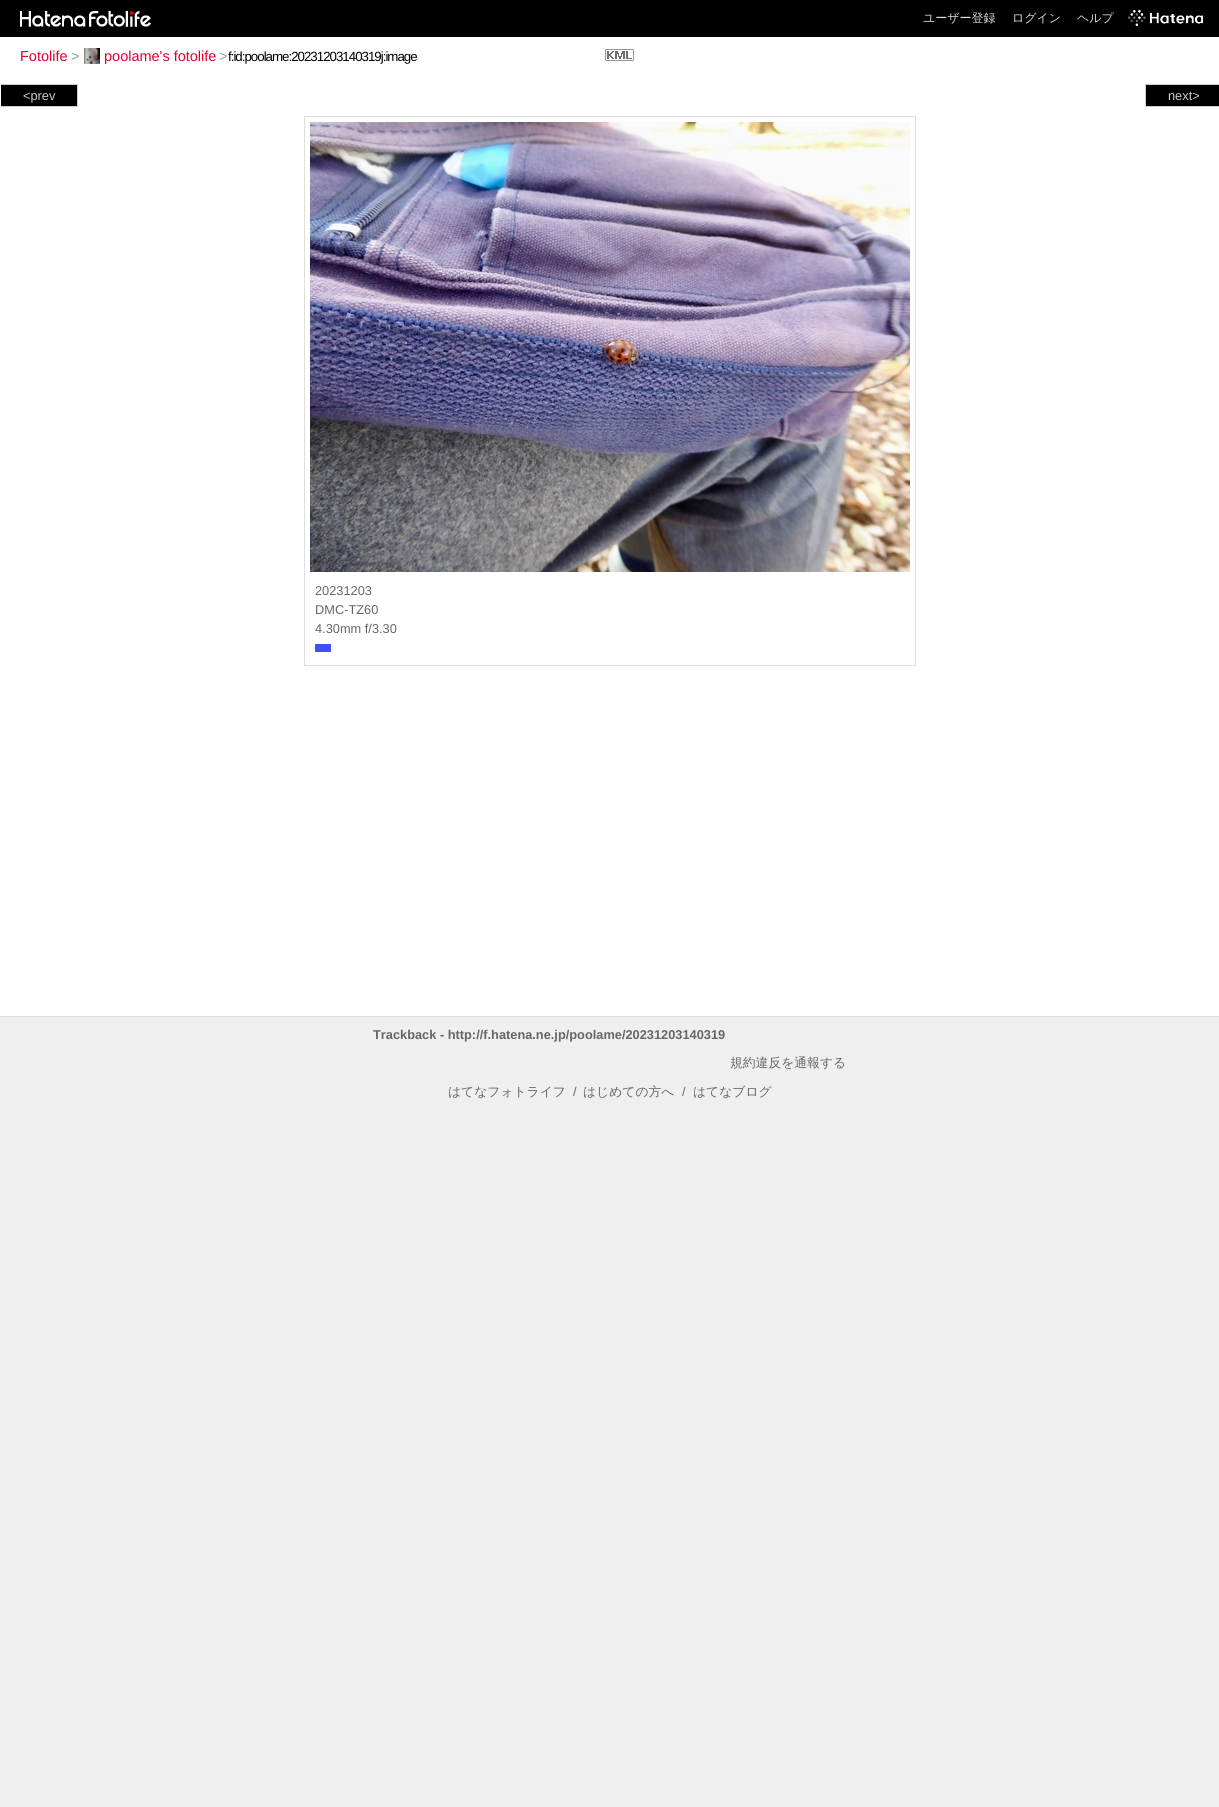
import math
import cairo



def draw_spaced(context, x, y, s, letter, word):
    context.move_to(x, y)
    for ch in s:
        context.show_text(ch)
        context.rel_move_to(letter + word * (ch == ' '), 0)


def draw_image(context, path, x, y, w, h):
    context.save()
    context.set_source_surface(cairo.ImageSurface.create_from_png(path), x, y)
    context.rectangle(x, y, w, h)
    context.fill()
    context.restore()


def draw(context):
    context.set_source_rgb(239 / 255, 239 / 255, 239 / 255)
    context.paint()
    context.set_source_rgb(0, 0, 0)
    context.rectangle(0, 0, 1219, 37)
    context.fill()
    draw_image(context, "images/1.png", 20, 11, 66, 16)
    draw_image(context, "images/2.png", 89, 11, 62, 16)
    draw_image(context, "images/3.png", 1128, 10, 75, 16)
    context.set_source_rgb(1, 1, 1)
    context.rectangle(0, 37, 1219, 979)
    context.fill()
    draw_image(context, "images/4.png", 84, 48, 16, 16)
    draw_image(context, "images/5.png", 605, 49, 29, 12)
    context.set_source_rgb(222 / 255, 222 / 255, 222 / 255)
    context.rectangle(0, 1016, 1219, 1)
    context.fill()
    context.set_source_rgb(0, 0, 0)
    context.rectangle(1, 85, 76, 21)
    context.fill()
    context.set_source_rgb(204 / 255, 204 / 255, 204 / 255)
    context.rectangle(1, 84, 77, 1)
    context.fill()
    context.rectangle(77, 84, 1, 23)
    context.fill()
    context.rectangle(1, 106, 77, 1)
    context.fill()
    context.set_source_rgb(0, 0, 0)
    context.rectangle(1146, 85, 73, 21)
    context.fill()
    context.set_source_rgb(204 / 255, 204 / 255, 204 / 255)
    context.rectangle(1145, 84, 74, 1)
    context.fill()
    context.rectangle(1145, 106, 74, 1)
    context.fill()
    context.rectangle(1145, 84, 1, 23)
    context.fill()
    context.rectangle(304.5, 116.5, 611, 549)
    context.set_source_rgb(222 / 255, 222 / 255, 222 / 255)
    context.set_line_width(1)
    context.stroke()
    draw_image(context, "images/6.png", 310, 122, 600, 450)
    context.set_source_rgb(64 / 255, 80 / 255, 1)
    context.rectangle(315, 644, 16, 8)
    context.fill()
    context.select_font_face("WenQuanYi Zen Hei Medium")
    context.set_font_size(12)
    context.set_source_rgb(221 / 255, 221 / 255, 221 / 255)
    context.move_to(923, 22)
    context.show_text("ユーザー登録")
    context.move_to(1012, 22)
    context.show_text("ログイン")
    context.move_to(1077, 22)
    context.show_text("ヘルプ")
    context.select_font_face("Liberation Sans")
    context.set_font_size(14.5)
    context.set_source_rgb(222 / 255, 0, 47 / 255)
    context.move_to(20, 61)
    context.show_text("Fotolife")
    context.set_source_rgb(153 / 255, 153 / 255, 153 / 255)
    context.move_to(71, 61)
    context.show_text(">")
    context.set_source_rgb(222 / 255, 0, 47 / 255)
    context.move_to(104, 61)
    context.show_text("poolame's fotolife")
    context.set_source_rgb(153 / 255, 153 / 255, 153 / 255)
    context.move_to(219, 61)
    context.show_text(">")
    context.set_font_size(13.3)
    context.set_source_rgb(0, 0, 0)
    draw_spaced(context, 228, 61, "f:id:poolame:20231203140319j:image", -1, 0)
    context.set_font_size(12.8)
    context.set_source_rgb(204 / 255, 204 / 255, 204 / 255)
    context.move_to(23, 100)
    context.show_text("<prev")
    context.move_to(1168, 100)
    context.show_text("next>")
    context.set_source_rgb(102 / 255, 102 / 255, 102 / 255)
    context.move_to(315, 595)
    context.show_text("20231203")
    context.move_to(315, 614)
    context.show_text("DMC-TZ60")
    context.move_to(315, 633)
    context.show_text("4.30mm f/3.30")
    context.select_font_face("Liberation Sans", cairo.FontSlant.NORMAL, cairo.FontWeight.BOLD)
    context.move_to(373, 1039)
    context.show_text("Trackback - http://f.hatena.ne.jp/poolame/20231203140319")
    context.select_font_face("WenQuanYi Zen Hei Medium")
    context.move_to(730, 1067)
    context.show_text("規約違反を通報する")
    context.move_to(448, 1096)
    context.show_text("はてなフォトライフ")
    context.select_font_face("Liberation Sans")
    context.move_to(573, 1096)
    context.show_text("/")
    context.select_font_face("WenQuanYi Zen Hei Medium")
    context.move_to(583, 1096)
    context.show_text("はじめての方へ")
    context.select_font_face("Liberation Sans")
    context.move_to(682, 1096)
    context.show_text("/")
    context.select_font_face("WenQuanYi Zen Hei Medium")
    context.move_to(693, 1096)
    context.show_text("はてなブログ")


surface = cairo.ImageSurface(cairo.Format.RGB24, 1219, 1807)
context = cairo.Context(surface)
options = cairo.FontOptions()
options.set_hint_metrics(cairo.HintMetrics.OFF)
options.set_hint_style(cairo.HintStyle.NONE)
context.set_font_options(options)
context.set_miter_limit(4)
draw(context)
surface.write_to_png("out.png")
